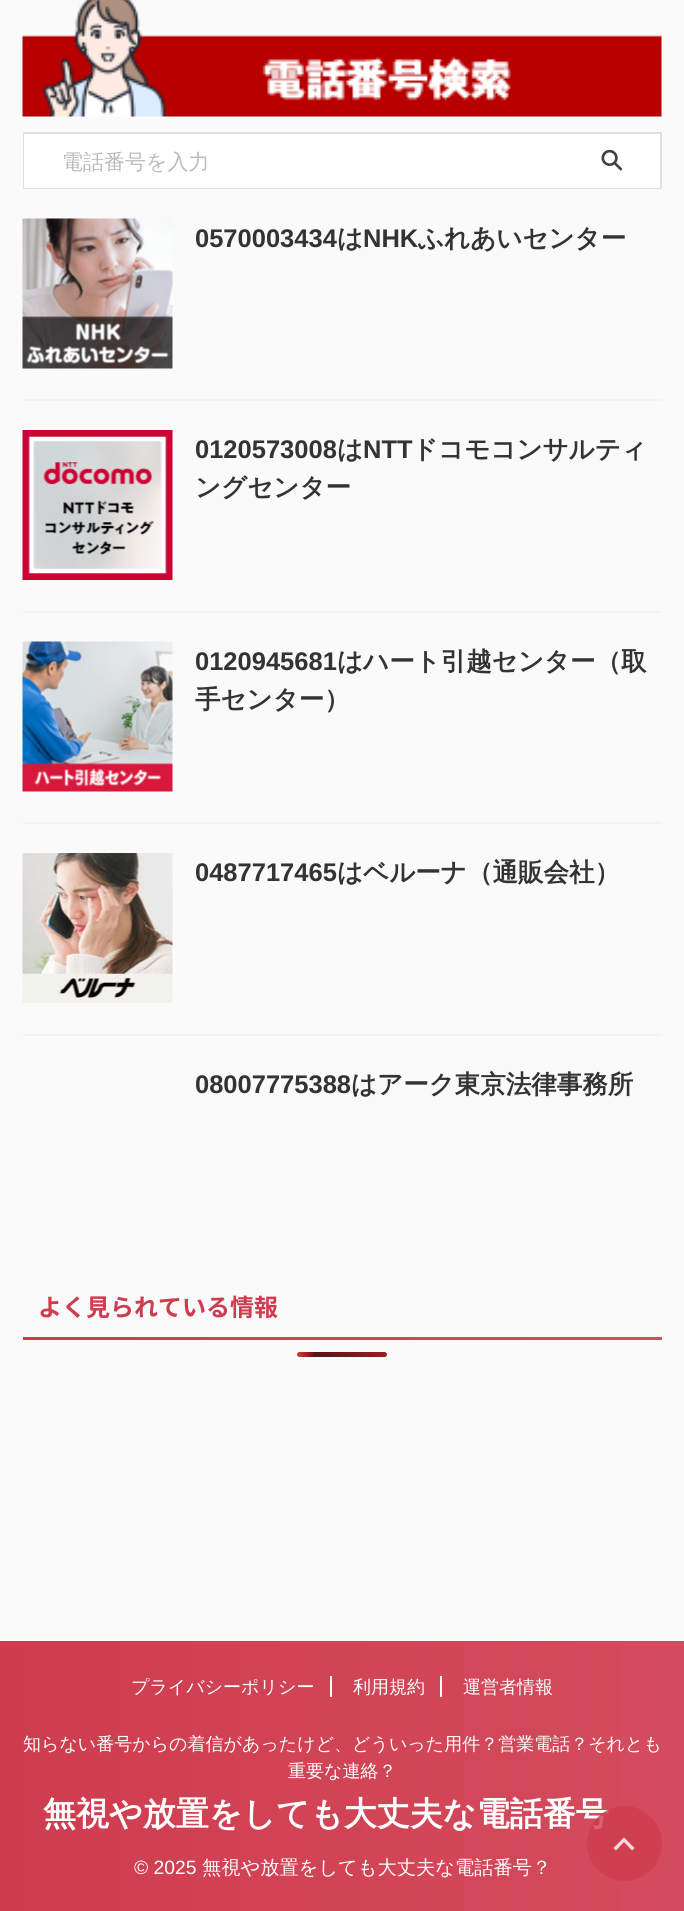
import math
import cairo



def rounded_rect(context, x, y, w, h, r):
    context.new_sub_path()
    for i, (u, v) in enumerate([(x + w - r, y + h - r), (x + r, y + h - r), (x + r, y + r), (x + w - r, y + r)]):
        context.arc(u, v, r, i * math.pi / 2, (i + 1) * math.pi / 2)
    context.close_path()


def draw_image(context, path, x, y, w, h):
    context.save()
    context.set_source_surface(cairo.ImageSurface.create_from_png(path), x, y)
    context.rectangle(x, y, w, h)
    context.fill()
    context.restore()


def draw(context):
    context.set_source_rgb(250 / 255, 250 / 255, 250 / 255)
    context.paint()
    draw_image(context, "images/1.png", 22, 0, 640, 117)
    context.rectangle(24, 133, 637, 55)
    context.set_source_rgb(224 / 255, 224 / 255, 224 / 255)
    context.stroke()
    context.set_source_rgb(1, 1, 1)
    context.rectangle(24, 134, 636, 54)
    context.fill()
    draw_image(context, "images/2.png", 601, 149, 22, 22)
    context.set_source_rgb(243 / 255, 243 / 255, 243 / 255)
    context.rectangle(23, 399, 639, 2)
    context.fill()
    draw_image(context, "images/3.png", 22, 218, 151, 151)
    context.rectangle(23, 611, 639, 2)
    context.fill()
    draw_image(context, "images/4.png", 22, 430, 151, 150)
    context.rectangle(23, 822, 639, 2)
    context.fill()
    draw_image(context, "images/5.png", 22, 641, 151, 151)
    context.rectangle(23, 1034, 639, 2)
    context.fill()
    draw_image(context, "images/6.png", 22, 853, 151, 150)
    gradient = cairo.LinearGradient(662, 1338, 23, 1338)
    gradient.add_color_stop_rgba(0, 211 / 255, 76 / 255, 93 / 255, 1)
    gradient.add_color_stop_rgba(1, 207 / 255, 60 / 255, 79 / 255, 1)
    context.set_source(gradient)
    context.rectangle(23, 1337, 639, 3)
    context.fill()
    gradient = cairo.LinearGradient(297, 1354, 477, 1354)
    gradient.add_color_stop_rgba(0, 221 / 255, 55 / 255, 55 / 255, 1)
    gradient.add_color_stop_rgba(0.1, 87 / 255, 19 / 255, 19 / 255, 1)
    gradient.add_color_stop_rgba(1, 221 / 255, 55 / 255, 55 / 255, 1)
    context.set_source(gradient)
    rounded_rect(context, 297, 1352, 90, 5, 2.5)
    context.fill()
    gradient = cairo.LinearGradient(684, 1776, 0, 1776)
    gradient.add_color_stop_rgba(0, 211 / 255, 76 / 255, 93 / 255, 1)
    gradient.add_color_stop_rgba(1, 207 / 255, 60 / 255, 79 / 255, 1)
    context.set_source(gradient)
    context.rectangle(0, 1641, 684, 270)
    context.fill()
    context.set_source_rgb(1, 1, 1)
    context.rectangle(330, 1676, 2, 21)
    context.fill()
    context.rectangle(440, 1676, 2, 21)
    context.fill()
    context.select_font_face("WenQuanYi Zen Hei Medium")
    context.set_font_size(21)
    context.set_source_rgb(186 / 255, 186 / 255, 186 / 255)
    context.move_to(62, 169)
    context.show_text("電話番号を入力")
    context.select_font_face("Liberation Sans", cairo.FontSlant.NORMAL, cairo.FontWeight.BOLD)
    context.set_font_size(25.5)
    context.set_source_rgb(51 / 255, 51 / 255, 51 / 255)
    context.move_to(195, 247)
    context.show_text("0570003434")
    context.select_font_face("WenQuanYi Zen Hei", cairo.FontSlant.NORMAL, cairo.FontWeight.BOLD)
    context.move_to(337, 247)
    context.show_text("は")
    context.select_font_face("Liberation Sans", cairo.FontSlant.NORMAL, cairo.FontWeight.BOLD)
    context.move_to(363, 247)
    context.show_text("NHK")
    context.select_font_face("WenQuanYi Zen Hei", cairo.FontSlant.NORMAL, cairo.FontWeight.BOLD)
    context.move_to(418, 247)
    context.show_text("ふれあいセンター")
    context.select_font_face("Liberation Sans", cairo.FontSlant.NORMAL, cairo.FontWeight.BOLD)
    context.move_to(195, 458)
    context.show_text("0120573008")
    context.select_font_face("WenQuanYi Zen Hei", cairo.FontSlant.NORMAL, cairo.FontWeight.BOLD)
    context.move_to(337, 458)
    context.show_text("は")
    context.select_font_face("Liberation Sans", cairo.FontSlant.NORMAL, cairo.FontWeight.BOLD)
    context.move_to(363, 458)
    context.show_text("NTT")
    context.select_font_face("WenQuanYi Zen Hei", cairo.FontSlant.NORMAL, cairo.FontWeight.BOLD)
    context.move_to(412, 458)
    context.show_text("ドコモコンサルティ")
    context.move_to(195, 496)
    context.show_text("ングセンター")
    context.select_font_face("Liberation Sans", cairo.FontSlant.NORMAL, cairo.FontWeight.BOLD)
    context.move_to(195, 670)
    context.show_text("0120945681")
    context.select_font_face("WenQuanYi Zen Hei", cairo.FontSlant.NORMAL, cairo.FontWeight.BOLD)
    context.move_to(337, 670)
    context.show_text("はハート引越センター（取")
    context.move_to(195, 708)
    context.show_text("手センター）")
    context.select_font_face("Liberation Sans", cairo.FontSlant.NORMAL, cairo.FontWeight.BOLD)
    context.move_to(195, 881)
    context.show_text("0487717465")
    context.select_font_face("WenQuanYi Zen Hei", cairo.FontSlant.NORMAL, cairo.FontWeight.BOLD)
    context.move_to(337, 881)
    context.show_text("はベルーナ（通販会社）")
    context.select_font_face("Liberation Sans", cairo.FontSlant.NORMAL, cairo.FontWeight.BOLD)
    context.move_to(195, 1093)
    context.show_text("08007775388")
    context.select_font_face("WenQuanYi Zen Hei", cairo.FontSlant.NORMAL, cairo.FontWeight.BOLD)
    context.move_to(351, 1093)
    context.show_text("はアーク東京法律事務所")
    context.select_font_face("Noto Sans JP", cairo.FontSlant.NORMAL, cairo.FontWeight.BOLD)
    context.set_font_size(24)
    context.set_source_rgb(207 / 255, 60 / 255, 79 / 255)
    context.move_to(38, 1316)
    context.show_text("よく見られている情報")
    context.select_font_face("WenQuanYi Zen Hei Medium")
    context.set_font_size(18)
    context.set_source_rgb(1, 1, 1)
    context.move_to(131, 1693)
    context.show_text("プライバシーポリシー")
    context.move_to(353, 1693)
    context.show_text("利用規約")
    context.move_to(463, 1693)
    context.show_text("運営者情報")
    context.move_to(23, 1750)
    context.show_text("知らない番号からの着信があったけど、どういった用件？営業電話？それとも")
    context.move_to(288, 1777)
    context.show_text("重要な連絡？")
    context.select_font_face("WenQuanYi Zen Hei", cairo.FontSlant.NORMAL, cairo.FontWeight.BOLD)
    context.set_font_size(33)
    context.move_to(43, 1825)
    context.show_text("無視や放置をしても大丈夫な電話番号")
    context.select_font_face("Liberation Sans")
    context.set_font_size(19.25)
    context.move_to(134, 1874)
    context.show_text("© 2025")
    context.select_font_face("WenQuanYi Zen Hei Medium")
    context.move_to(202, 1874)
    context.show_text("無視や放置をしても大丈夫な電話番号？")
    context.set_source_rgba(207 / 255, 60 / 255, 79 / 255, 0.8)
    context.new_path()
    context.arc(624.5, 1843.5, 37.5, 0, 2 * math.pi)
    context.fill()
    context.set_source_rgb(246 / 255, 219 / 255, 222 / 255)
    context.new_path()
    context.move_to(624, 1842)
    context.line_to(616, 1850.5)
    context.line_to(613.5, 1848)
    context.line_to(624, 1837.5)
    context.line_to(634.5, 1848)
    context.line_to(632, 1850.5)
    context.close_path()
    context.fill()


surface = cairo.ImageSurface(cairo.Format.RGB24, 684, 1911)
context = cairo.Context(surface)
options = cairo.FontOptions()
options.set_hint_metrics(cairo.HintMetrics.OFF)
options.set_hint_style(cairo.HintStyle.NONE)
context.set_font_options(options)
context.set_miter_limit(4)
draw(context)
surface.write_to_png("out.png")
